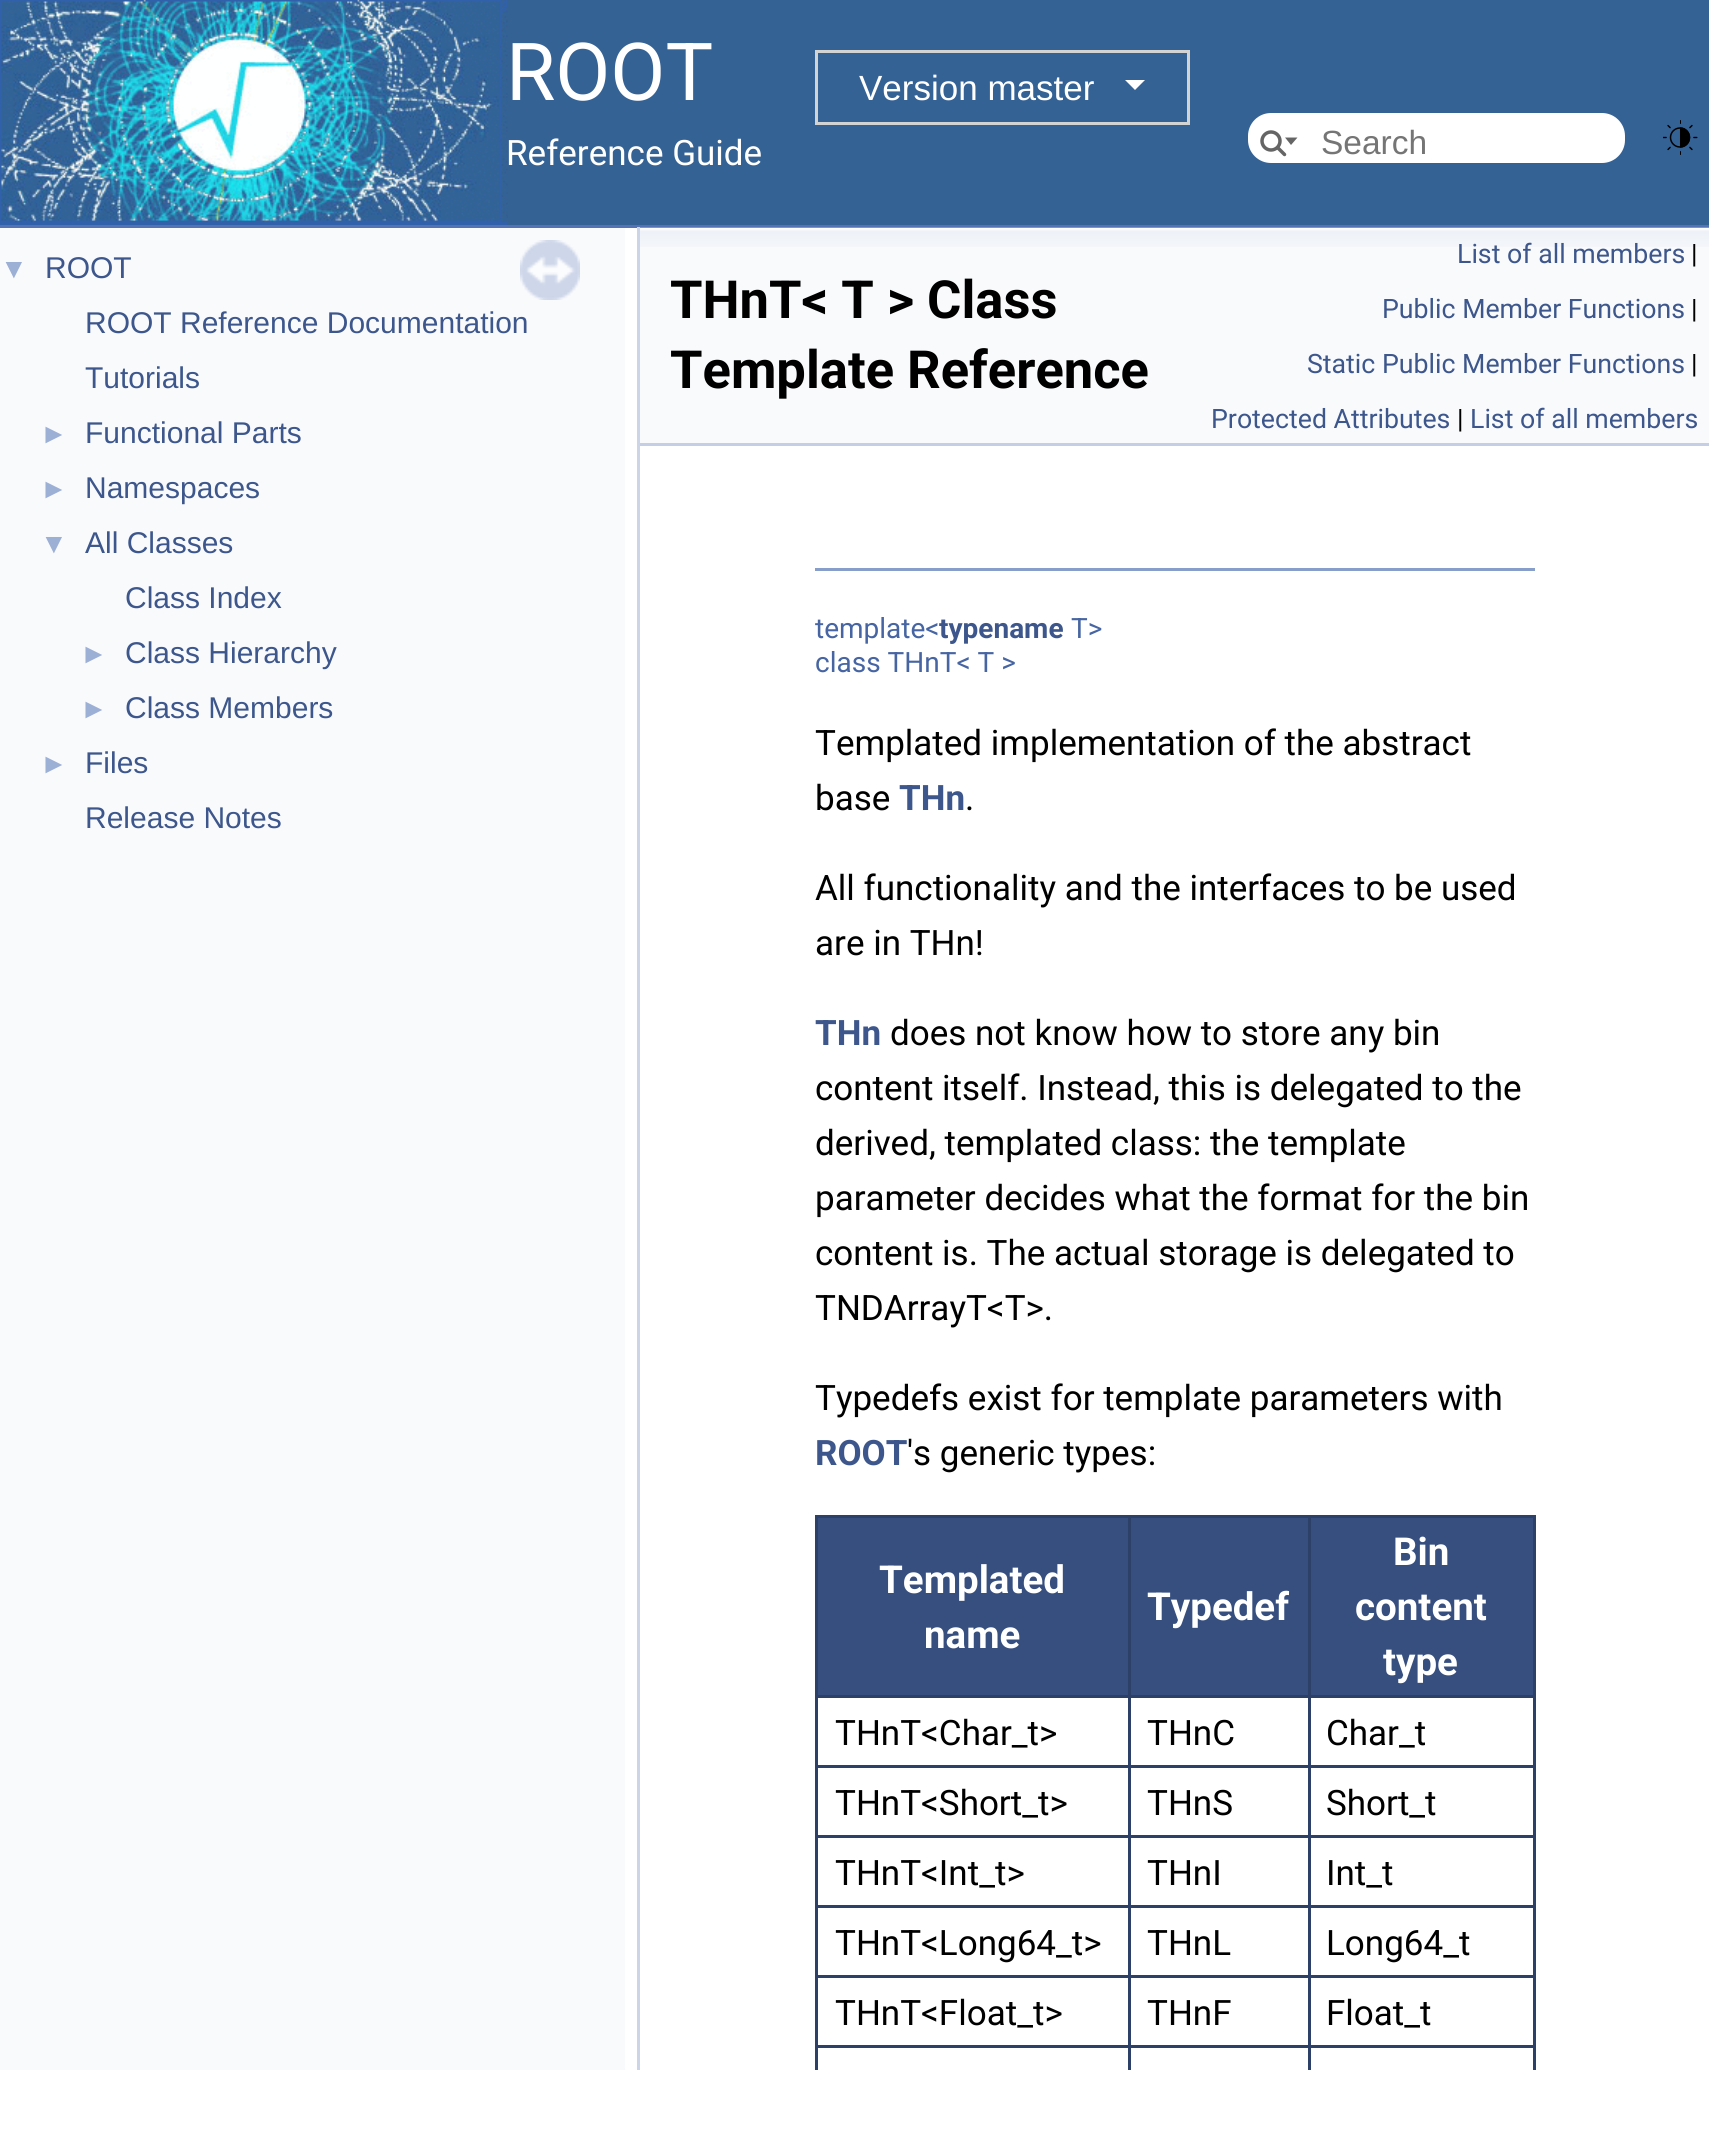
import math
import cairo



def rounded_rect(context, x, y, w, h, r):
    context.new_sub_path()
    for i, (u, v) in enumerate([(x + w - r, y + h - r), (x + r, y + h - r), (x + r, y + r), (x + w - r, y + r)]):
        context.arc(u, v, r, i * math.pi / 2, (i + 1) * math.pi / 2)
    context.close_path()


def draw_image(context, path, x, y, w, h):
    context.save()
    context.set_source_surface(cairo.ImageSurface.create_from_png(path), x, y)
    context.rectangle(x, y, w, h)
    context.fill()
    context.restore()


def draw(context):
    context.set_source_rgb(1, 1, 1)
    context.paint()
    context.set_source_rgb(83 / 255, 115 / 255, 180 / 255)
    context.rectangle(0, 225, 1709, 3)
    context.fill()
    context.set_source_rgb(52 / 255, 98 / 255, 149 / 255)
    context.rectangle(507, 0, 1202, 225)
    context.fill()
    gradient = cairo.LinearGradient(254, 177, 254, 218)
    gradient.add_color_stop_rgba(0, 52 / 255, 98 / 255, 149 / 255, 1)
    gradient.add_color_stop_rgba(0.94, 52 / 255, 98 / 255, 149 / 255, 1)
    gradient.add_color_stop_rgba(1, 61 / 255, 87 / 255, 140 / 255, 1)
    context.set_source(gradient)
    context.rectangle(507, 216, 1, 2)
    context.fill()
    draw_image(context, "images/1.png", 0, 0, 508, 225)
    context.rectangle(816.5, 51.5, 372, 72)
    context.set_source_rgb(211 / 255, 211 / 255, 211 / 255)
    context.set_line_width(3)
    context.stroke()
    context.set_source_rgb(1, 1, 1)
    context.new_path()
    context.move_to(1125, 80)
    context.line_to(1145, 80)
    context.line_to(1135, 90)
    context.close_path()
    context.fill()
    rounded_rect(context, 1248, 113, 377, 50, 23)
    context.fill()
    context.arc(1271, 141, 9, 0, 2 * math.pi)
    context.set_source_rgb(101 / 255, 101 / 255, 101 / 255)
    context.set_line_width(3.5)
    context.stroke()
    context.new_path()
    context.move_to(1285, 137.5)
    context.line_to(1291, 145)
    context.line_to(1297.5, 137.5)
    context.close_path()
    context.fill()
    context.new_path()
    context.move_to(1278, 148)
    context.line_to(1284.5, 154.5)
    context.set_line_cap(cairo.LineCap.ROUND)
    context.stroke()
    draw_image(context, "images/2.png", 1663, 120, 35, 35)
    context.set_source_rgb(249 / 255, 250 / 255, 252 / 255)
    context.rectangle(0, 228, 625, 1842)
    context.fill()
    draw_image(context, "images/3.png", 520, 240, 60, 60)
    context.set_source_rgb(204 / 255, 213 / 255, 232 / 255)
    context.rectangle(637, 227, 3, 1843)
    context.fill()
    context.set_source_rgb(249 / 255, 250 / 255, 252 / 255)
    context.rectangle(640, 247, 1069, 196)
    context.fill()
    draw_image(context, "images/4.png", 640, 227, 1069, 20)
    context.set_source_rgb(196 / 255, 207 / 255, 229 / 255)
    context.rectangle(640, 443, 1069, 3)
    context.fill()
    context.set_source_rgb(135 / 255, 158 / 255, 203 / 255)
    context.rectangle(815, 568, 720, 3)
    context.fill()
    context.set_source_rgb(55 / 255, 79 / 255, 127 / 255)
    context.rectangle(818, 1518, 310, 177)
    context.fill()
    context.set_source_rgb(45 / 255, 64 / 255, 104 / 255)
    context.rectangle(1308, 1515, 227, 3)
    context.fill()
    context.rectangle(1308, 1695, 227, 3)
    context.fill()
    context.rectangle(1308, 1765, 227, 3)
    context.fill()
    context.rectangle(1308, 1835, 227, 3)
    context.fill()
    context.rectangle(1308, 1905, 227, 3)
    context.fill()
    context.rectangle(1308, 1975, 227, 3)
    context.fill()
    context.rectangle(1308, 2045, 227, 3)
    context.fill()
    context.rectangle(1308, 2045, 3, 25)
    context.fill()
    context.rectangle(1128, 2045, 182, 3)
    context.fill()
    context.rectangle(1308, 1975, 3, 73)
    context.fill()
    context.rectangle(1128, 1975, 182, 3)
    context.fill()
    context.rectangle(1308, 1905, 3, 73)
    context.fill()
    context.rectangle(1128, 1905, 182, 3)
    context.fill()
    context.rectangle(1308, 1835, 3, 73)
    context.fill()
    context.rectangle(1128, 1835, 182, 3)
    context.fill()
    context.rectangle(1308, 1765, 3, 73)
    context.fill()
    context.rectangle(1128, 1765, 182, 3)
    context.fill()
    context.rectangle(1308, 1695, 3, 73)
    context.fill()
    context.rectangle(1128, 1695, 182, 3)
    context.fill()
    context.rectangle(1308, 1515, 3, 183)
    context.fill()
    context.rectangle(1128, 1515, 182, 3)
    context.fill()
    context.rectangle(1128, 2045, 3, 25)
    context.fill()
    context.rectangle(815, 2045, 315, 3)
    context.fill()
    context.rectangle(1128, 1975, 3, 73)
    context.fill()
    context.rectangle(815, 1975, 315, 3)
    context.fill()
    context.rectangle(1128, 1905, 3, 73)
    context.fill()
    context.rectangle(815, 1905, 315, 3)
    context.fill()
    context.rectangle(1128, 1835, 3, 73)
    context.fill()
    context.rectangle(815, 1835, 315, 3)
    context.fill()
    context.rectangle(1128, 1765, 3, 73)
    context.fill()
    context.rectangle(815, 1765, 315, 3)
    context.fill()
    context.rectangle(1128, 1695, 3, 73)
    context.fill()
    context.rectangle(815, 1695, 315, 3)
    context.fill()
    context.rectangle(1128, 1515, 3, 183)
    context.fill()
    context.rectangle(815, 1515, 315, 3)
    context.fill()
    context.rectangle(815, 2045, 3, 25)
    context.fill()
    context.rectangle(815, 1975, 3, 73)
    context.fill()
    context.rectangle(815, 1905, 3, 73)
    context.fill()
    context.rectangle(815, 1835, 3, 73)
    context.fill()
    context.rectangle(815, 1765, 3, 73)
    context.fill()
    context.rectangle(815, 1695, 3, 73)
    context.fill()
    context.rectangle(815, 1515, 3, 183)
    context.fill()
    context.set_source_rgb(55 / 255, 79 / 255, 127 / 255)
    context.rectangle(1131, 1518, 177, 177)
    context.fill()
    context.rectangle(1311, 1518, 222, 177)
    context.fill()
    context.set_source_rgb(45 / 255, 64 / 255, 104 / 255)
    context.rectangle(1533, 2045, 3, 25)
    context.fill()
    context.rectangle(1533, 1975, 3, 73)
    context.fill()
    context.rectangle(1533, 1905, 3, 73)
    context.fill()
    context.rectangle(1533, 1835, 3, 73)
    context.fill()
    context.rectangle(1533, 1765, 3, 73)
    context.fill()
    context.rectangle(1533, 1695, 3, 73)
    context.fill()
    context.rectangle(1533, 1515, 3, 183)
    context.fill()
    context.select_font_face("Roboto")
    context.set_font_size(80)
    context.set_source_rgb(1, 1, 1)
    context.move_to(506, 100)
    context.show_text("ROOT")
    context.select_font_face("Liberation Sans")
    context.set_font_size(35)
    context.move_to(859, 100)
    context.show_text("Version master")
    context.select_font_face("Roboto")
    context.move_to(506, 165)
    context.show_text("Reference Guide")
    context.select_font_face("Liberation Sans")
    context.set_font_size(33.5)
    context.set_source_rgb(117 / 255, 117 / 255, 117 / 255)
    context.move_to(1321, 154)
    context.show_text("Search")
    context.set_font_size(28)
    context.set_source_rgb(156 / 255, 175 / 255, 212 / 255)
    context.move_to(0, 278)
    context.show_text("▼")
    context.set_font_size(30)
    context.set_source_rgb(61 / 255, 87 / 255, 140 / 255)
    context.move_to(45, 278)
    context.show_text("ROOT")
    context.move_to(85, 333)
    context.show_text("ROOT Reference Documentation")
    context.move_to(85, 388)
    context.show_text("Tutorials")
    context.set_font_size(28)
    context.set_source_rgb(156 / 255, 175 / 255, 212 / 255)
    context.move_to(40, 443)
    context.show_text("►")
    context.set_font_size(30)
    context.set_source_rgb(61 / 255, 87 / 255, 140 / 255)
    context.move_to(85, 443)
    context.show_text("Functional Parts")
    context.set_font_size(28)
    context.set_source_rgb(156 / 255, 175 / 255, 212 / 255)
    context.move_to(40, 498)
    context.show_text("►")
    context.set_font_size(30)
    context.set_source_rgb(61 / 255, 87 / 255, 140 / 255)
    context.move_to(85, 498)
    context.show_text("Namespaces")
    context.set_font_size(28)
    context.set_source_rgb(156 / 255, 175 / 255, 212 / 255)
    context.move_to(40, 553)
    context.show_text("▼")
    context.set_font_size(30)
    context.set_source_rgb(61 / 255, 87 / 255, 140 / 255)
    context.move_to(85, 553)
    context.show_text("All Classes")
    context.move_to(125, 608)
    context.show_text("Class Index")
    context.set_font_size(28)
    context.set_source_rgb(156 / 255, 175 / 255, 212 / 255)
    context.move_to(80, 663)
    context.show_text("►")
    context.set_font_size(30)
    context.set_source_rgb(61 / 255, 87 / 255, 140 / 255)
    context.move_to(125, 663)
    context.show_text("Class Hierarchy")
    context.set_font_size(28)
    context.set_source_rgb(156 / 255, 175 / 255, 212 / 255)
    context.move_to(80, 718)
    context.show_text("►")
    context.set_font_size(30)
    context.set_source_rgb(61 / 255, 87 / 255, 140 / 255)
    context.move_to(125, 718)
    context.show_text("Class Members")
    context.set_font_size(28)
    context.set_source_rgb(156 / 255, 175 / 255, 212 / 255)
    context.move_to(40, 773)
    context.show_text("►")
    context.set_font_size(30)
    context.set_source_rgb(61 / 255, 87 / 255, 140 / 255)
    context.move_to(85, 773)
    context.show_text("Files")
    context.move_to(85, 828)
    context.show_text("Release Notes")
    context.select_font_face("Roboto", cairo.FontSlant.NORMAL, cairo.FontWeight.BOLD)
    context.set_font_size(52.5)
    context.set_source_rgb(0, 0, 0)
    context.move_to(670, 318)
    context.show_text("THnT< T > Class")
    context.move_to(670, 388)
    context.show_text("Template Reference")
    context.select_font_face("Roboto")
    context.set_font_size(26.7)
    context.set_source_rgb(61 / 255, 87 / 255, 140 / 255)
    context.move_to(1457, 263)
    context.show_text("List of all members")
    context.set_source_rgb(0, 0, 0)
    context.move_to(1691, 263)
    context.show_text("|")
    context.set_source_rgb(61 / 255, 87 / 255, 140 / 255)
    context.move_to(1382, 318)
    context.show_text("Public Member Functions")
    context.set_source_rgb(0, 0, 0)
    context.move_to(1691, 318)
    context.show_text("|")
    context.set_source_rgb(61 / 255, 87 / 255, 140 / 255)
    context.move_to(1307, 373)
    context.show_text("Static Public Member Functions")
    context.set_source_rgb(0, 0, 0)
    context.move_to(1691, 373)
    context.show_text("|")
    context.set_source_rgb(61 / 255, 87 / 255, 140 / 255)
    context.move_to(1211, 428)
    context.show_text("Protected Attributes")
    context.set_source_rgb(0, 0, 0)
    context.move_to(1457, 428)
    context.show_text("|")
    context.set_source_rgb(61 / 255, 87 / 255, 140 / 255)
    context.move_to(1470, 428)
    context.show_text("List of all members")
    context.set_font_size(28)
    context.set_source_rgb(70 / 255, 101 / 255, 162 / 255)
    context.move_to(815, 638)
    context.show_text("template<")
    context.select_font_face("Roboto", cairo.FontSlant.NORMAL, cairo.FontWeight.BOLD)
    context.set_source_rgb(61 / 255, 87 / 255, 140 / 255)
    context.move_to(939, 638)
    context.show_text("typename")
    context.select_font_face("Roboto")
    context.set_source_rgb(70 / 255, 101 / 255, 162 / 255)
    context.move_to(1071, 638)
    context.show_text("T>")
    context.move_to(815, 672)
    context.show_text("class THnT< T >")
    context.set_font_size(35)
    context.set_source_rgb(0, 0, 0)
    context.move_to(815, 755)
    context.show_text("Templated implementation of the abstract")
    context.move_to(815, 810)
    context.show_text("base")
    context.select_font_face("Roboto", cairo.FontSlant.NORMAL, cairo.FontWeight.BOLD)
    context.set_source_rgb(61 / 255, 87 / 255, 140 / 255)
    context.move_to(899, 810)
    context.show_text("THn")
    context.select_font_face("Roboto")
    context.set_source_rgb(0, 0, 0)
    context.move_to(965, 810)
    context.show_text(".")
    context.move_to(815, 900)
    context.show_text("All functionality and the interfaces to be used")
    context.move_to(815, 955)
    context.show_text("are in THn!")
    context.select_font_face("Roboto", cairo.FontSlant.NORMAL, cairo.FontWeight.BOLD)
    context.set_source_rgb(61 / 255, 87 / 255, 140 / 255)
    context.move_to(815, 1045)
    context.show_text("THn")
    context.select_font_face("Roboto")
    context.set_source_rgb(0, 0, 0)
    context.move_to(890, 1045)
    context.show_text("does not know how to store any bin")
    context.move_to(815, 1100)
    context.show_text("content itself. Instead, this is delegated to the")
    context.move_to(815, 1155)
    context.show_text("derived, templated class: the template")
    context.move_to(815, 1210)
    context.show_text("parameter decides what the format for the bin")
    context.move_to(815, 1265)
    context.show_text("content is. The actual storage is delegated to")
    context.move_to(815, 1320)
    context.show_text("TNDArrayT<T>.")
    context.move_to(815, 1410)
    context.show_text("Typedefs exist for template parameters with")
    context.select_font_face("Roboto", cairo.FontSlant.NORMAL, cairo.FontWeight.BOLD)
    context.set_source_rgb(61 / 255, 87 / 255, 140 / 255)
    context.move_to(815, 1465)
    context.show_text("ROOT")
    context.select_font_face("Roboto")
    context.set_source_rgb(0, 0, 0)
    context.move_to(907, 1465)
    context.show_text("'s generic types:")
    context.select_font_face("Roboto", cairo.FontSlant.NORMAL, cairo.FontWeight.BOLD)
    context.set_font_size(38.5)
    context.set_source_rgb(1, 1, 1)
    context.move_to(879, 1593)
    context.show_text("Templated")
    context.move_to(924, 1648)
    context.show_text("name")
    context.move_to(1147, 1620)
    context.show_text("Typedef")
    context.move_to(1393, 1565)
    context.show_text("Bin")
    context.move_to(1355, 1620)
    context.show_text("content")
    context.move_to(1383, 1675)
    context.show_text("type")
    context.select_font_face("Roboto")
    context.set_font_size(35)
    context.set_source_rgb(0, 0, 0)
    context.move_to(835, 1745)
    context.show_text("THnT<Char_t>")
    context.move_to(1147, 1745)
    context.show_text("THnC")
    context.move_to(1326, 1745)
    context.show_text("Char_t")
    context.move_to(835, 1815)
    context.show_text("THnT<Short_t>")
    context.move_to(1147, 1815)
    context.show_text("THnS")
    context.move_to(1326, 1815)
    context.show_text("Short_t")
    context.move_to(835, 1885)
    context.show_text("THnT<Int_t>")
    context.move_to(1147, 1885)
    context.show_text("THnI")
    context.move_to(1326, 1885)
    context.show_text("Int_t")
    context.move_to(835, 1955)
    context.show_text("THnT<Long64_t>")
    context.move_to(1147, 1955)
    context.show_text("THnL")
    context.move_to(1326, 1955)
    context.show_text("Long64_t")
    context.move_to(835, 2025)
    context.show_text("THnT<Float_t>")
    context.move_to(1147, 2025)
    context.show_text("THnF")
    context.move_to(1326, 2025)
    context.show_text("Float_t")


surface = cairo.ImageSurface(cairo.Format.RGB24, 1709, 2150)
context = cairo.Context(surface)
options = cairo.FontOptions()
options.set_hint_metrics(cairo.HintMetrics.OFF)
options.set_hint_style(cairo.HintStyle.NONE)
context.set_font_options(options)
context.set_miter_limit(4)
draw(context)
surface.write_to_png("out.png")
